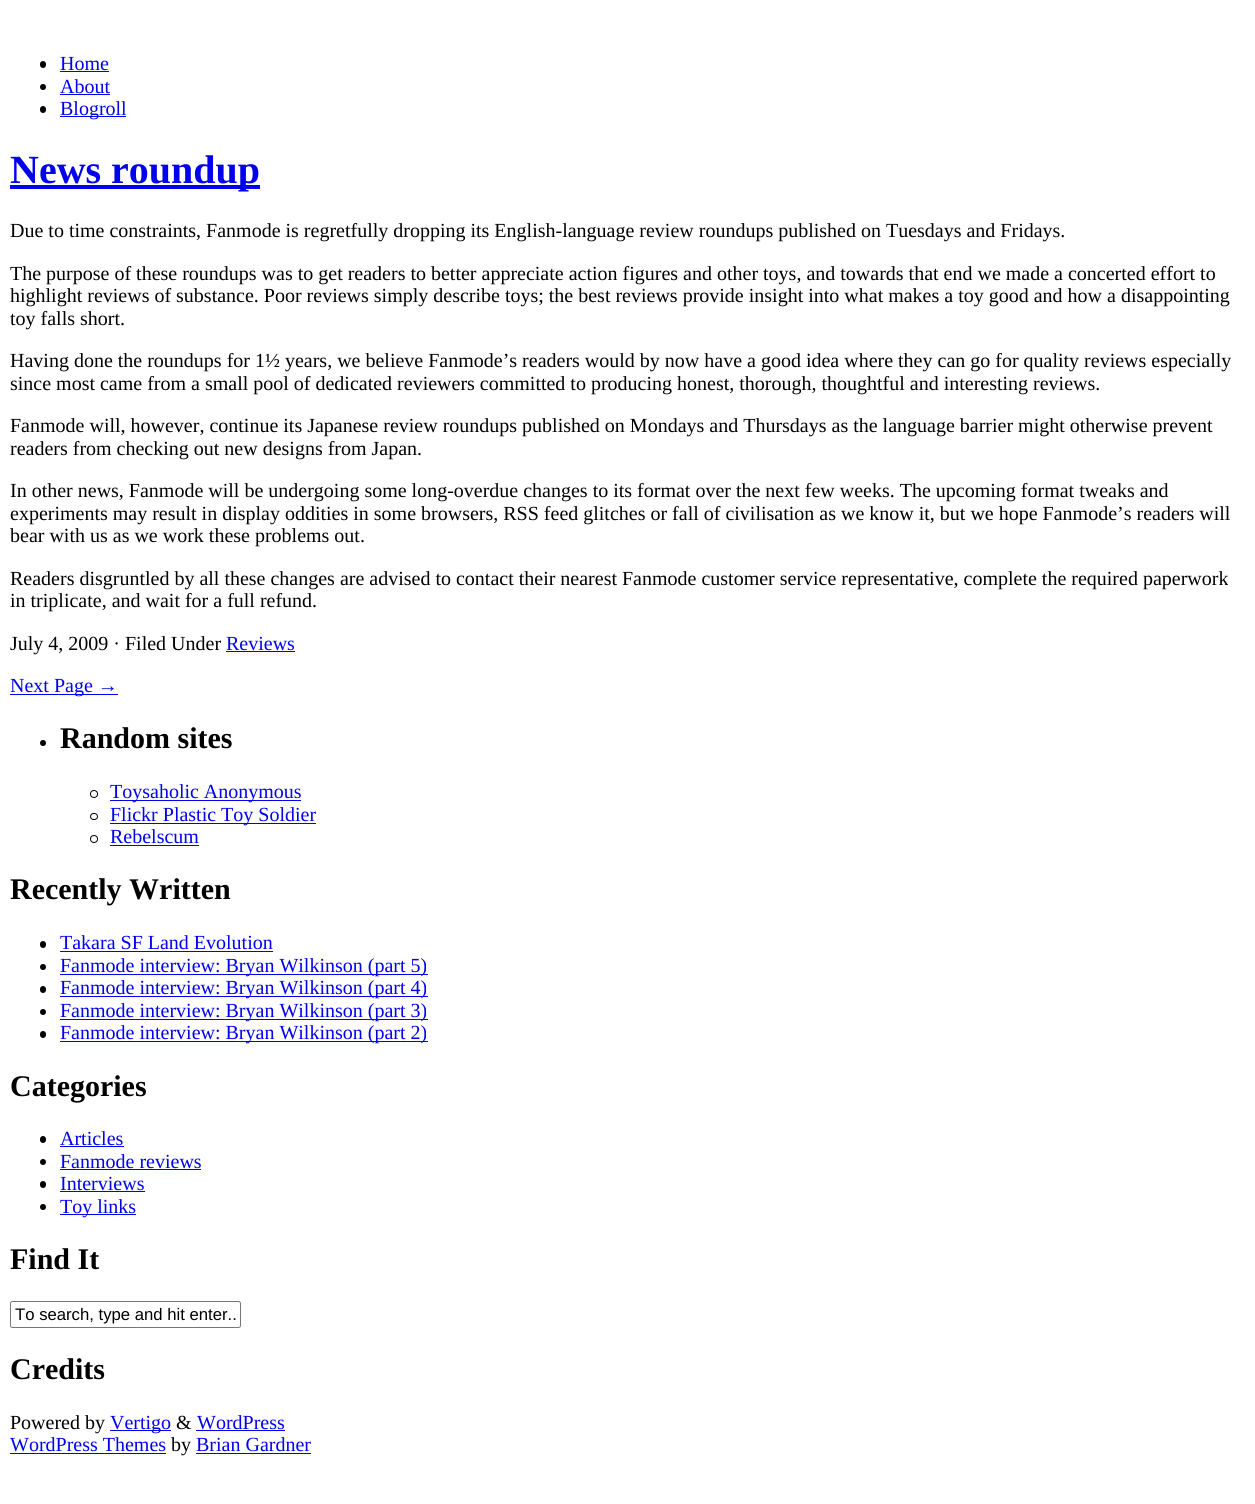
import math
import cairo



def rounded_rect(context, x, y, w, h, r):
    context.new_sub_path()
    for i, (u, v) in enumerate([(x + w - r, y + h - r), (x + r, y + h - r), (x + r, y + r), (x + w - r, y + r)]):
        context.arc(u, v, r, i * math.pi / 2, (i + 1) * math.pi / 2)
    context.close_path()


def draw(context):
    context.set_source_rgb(1, 1, 1)
    context.paint()
    context.set_source_rgb(0, 0, 0)
    rounded_rect(context, 40, 61, 6, 7, 3)
    context.fill()
    context.set_source_rgb(0, 0, 238 / 255)
    context.rectangle(60, 71, 49, 1)
    context.fill()
    context.set_source_rgb(0, 0, 0)
    context.arc(43, 87, 3, 0, 2 * math.pi)
    context.fill()
    context.set_source_rgb(0, 0, 238 / 255)
    context.rectangle(60, 94, 50, 1)
    context.fill()
    context.set_source_rgb(0, 0, 0)
    rounded_rect(context, 40, 106, 6, 7, 3)
    context.fill()
    context.set_source_rgb(0, 0, 238 / 255)
    context.rectangle(60, 116, 66, 1)
    context.fill()
    context.rectangle(10, 185, 250, 4)
    context.fill()
    context.rectangle(226, 651, 69, 1)
    context.fill()
    context.rectangle(10, 694, 108, 1)
    context.fill()
    context.set_source_rgb(0, 0, 0)
    context.arc(43, 743, 3, 0, 2 * math.pi)
    context.fill()
    context.arc(94, 794, 3.5, 0, 2 * math.pi)
    context.set_line_width(1)
    context.stroke()
    context.set_source_rgb(0, 0, 238 / 255)
    context.rectangle(110, 800, 191, 1)
    context.fill()
    rounded_rect(context, 90.5, 813.5, 7, 6, 3)
    context.set_source_rgb(0, 0, 0)
    context.stroke()
    context.set_source_rgb(0, 0, 238 / 255)
    context.rectangle(110, 823, 206, 1)
    context.fill()
    context.arc(94, 839, 3.5, 0, 2 * math.pi)
    context.set_source_rgb(0, 0, 0)
    context.stroke()
    context.set_source_rgb(0, 0, 238 / 255)
    context.rectangle(110, 845, 89, 1)
    context.fill()
    context.set_source_rgb(0, 0, 0)
    rounded_rect(context, 40, 941, 6, 7, 3)
    context.fill()
    context.set_source_rgb(0, 0, 238 / 255)
    context.rectangle(60, 951, 213, 1)
    context.fill()
    context.set_source_rgb(0, 0, 0)
    context.arc(43, 967, 3, 0, 2 * math.pi)
    context.fill()
    context.set_source_rgb(0, 0, 238 / 255)
    context.rectangle(60, 974, 368, 1)
    context.fill()
    context.set_source_rgb(0, 0, 0)
    rounded_rect(context, 40, 986, 6, 7, 3)
    context.fill()
    context.set_source_rgb(0, 0, 238 / 255)
    context.rectangle(60, 996, 368, 1)
    context.fill()
    context.set_source_rgb(0, 0, 0)
    context.arc(43, 1012, 3, 0, 2 * math.pi)
    context.fill()
    context.set_source_rgb(0, 0, 238 / 255)
    context.rectangle(60, 1019, 368, 1)
    context.fill()
    context.set_source_rgb(0, 0, 0)
    rounded_rect(context, 40, 1031, 6, 7, 3)
    context.fill()
    context.set_source_rgb(0, 0, 238 / 255)
    context.rectangle(60, 1041, 368, 1)
    context.fill()
    context.set_source_rgb(0, 0, 0)
    rounded_rect(context, 40, 1136, 6, 7, 3)
    context.fill()
    context.set_source_rgb(0, 0, 238 / 255)
    context.rectangle(60, 1146, 64, 1)
    context.fill()
    context.set_source_rgb(0, 0, 0)
    context.arc(43, 1162, 3, 0, 2 * math.pi)
    context.fill()
    context.set_source_rgb(0, 0, 238 / 255)
    context.rectangle(60, 1169, 141, 1)
    context.fill()
    context.set_source_rgb(0, 0, 0)
    rounded_rect(context, 40, 1181, 6, 7, 3)
    context.fill()
    context.set_source_rgb(0, 0, 238 / 255)
    context.rectangle(60, 1191, 85, 1)
    context.fill()
    context.set_source_rgb(0, 0, 0)
    context.arc(43, 1207, 3, 0, 2 * math.pi)
    context.fill()
    context.set_source_rgb(0, 0, 238 / 255)
    context.rectangle(60, 1214, 76, 1)
    context.fill()
    rounded_rect(context, 10.5, 1301.5, 230, 26, 2)
    context.set_source_rgb(118 / 255, 118 / 255, 118 / 255)
    context.stroke()
    context.set_source_rgb(0, 0, 238 / 255)
    context.rectangle(110, 1430, 61, 1)
    context.fill()
    context.rectangle(196, 1430, 89, 1)
    context.fill()
    context.rectangle(10, 1453, 156, 1)
    context.fill()
    context.rectangle(196, 1453, 115, 1)
    context.fill()
    context.select_font_face("Liberation Serif")
    context.set_font_size(20)
    context.move_to(60, 70)
    context.show_text("Home")
    context.move_to(60, 93)
    context.show_text("About")
    context.move_to(60, 115)
    context.show_text("Blogroll")
    context.select_font_face("Liberation Serif", cairo.FontSlant.NORMAL, cairo.FontWeight.BOLD)
    context.set_font_size(40)
    context.move_to(10, 183)
    context.show_text("News roundup")
    context.select_font_face("Liberation Serif")
    context.set_font_size(20)
    context.set_source_rgb(0, 0, 0)
    context.move_to(10, 237)
    context.show_text("Due to time constraints, Fanmode is regretfully dropping its English-language review roundups published on Tuesdays and Fridays.")
    context.move_to(10, 280)
    context.show_text("The purpose of these roundups was to get readers to better appreciate action figures and other toys, and towards that end we made a concerted effort to")
    context.move_to(10, 302)
    context.show_text("highlight reviews of substance. Poor reviews simply describe toys; the best reviews provide insight into what makes a toy good and how a disappointing")
    context.move_to(10, 325)
    context.show_text("toy falls short.")
    context.move_to(10, 367)
    context.show_text("Having done the roundups for 1½ years, we believe Fanmode’s readers would by now have a good idea where they can go for quality reviews especially")
    context.move_to(10, 390)
    context.show_text("since most came from a small pool of dedicated reviewers committed to producing honest, thorough, thoughtful and interesting reviews.")
    context.move_to(10, 432)
    context.show_text("Fanmode will, however, continue its Japanese review roundups published on Mondays and Thursdays as the language barrier might otherwise prevent")
    context.move_to(10, 455)
    context.show_text("readers from checking out new designs from Japan.")
    context.move_to(10, 497)
    context.show_text("In other news, Fanmode will be undergoing some long-overdue changes to its format over the next few weeks. The upcoming format tweaks and")
    context.move_to(10, 520)
    context.show_text("experiments may result in display oddities in some browsers, RSS feed glitches or fall of civilisation as we know it, but we hope Fanmode’s readers will")
    context.move_to(10, 542)
    context.show_text("bear with us as we work these problems out.")
    context.move_to(10, 585)
    context.show_text("Readers disgruntled by all these changes are advised to contact their nearest Fanmode customer service representative, complete the required paperwork")
    context.move_to(10, 607)
    context.show_text("in triplicate, and wait for a full refund.")
    context.move_to(10, 650)
    context.show_text("July 4, 2009 · Filed Under")
    context.set_source_rgb(0, 0, 238 / 255)
    context.move_to(226, 650)
    context.show_text("Reviews")
    context.move_to(10, 692)
    context.show_text("Next Page →")
    context.select_font_face("Liberation Serif", cairo.FontSlant.NORMAL, cairo.FontWeight.BOLD)
    context.set_font_size(30)
    context.set_source_rgb(0, 0, 0)
    context.move_to(60, 748)
    context.show_text("Random sites")
    context.select_font_face("Liberation Serif")
    context.set_font_size(20)
    context.set_source_rgb(0, 0, 238 / 255)
    context.move_to(110, 798)
    context.show_text("Toysaholic Anonymous")
    context.move_to(110, 821)
    context.show_text("Flickr Plastic Toy Soldier")
    context.move_to(110, 843)
    context.show_text("Rebelscum")
    context.select_font_face("Liberation Serif", cairo.FontSlant.NORMAL, cairo.FontWeight.BOLD)
    context.set_font_size(30)
    context.set_source_rgb(0, 0, 0)
    context.move_to(10, 899)
    context.show_text("Recently Written")
    context.select_font_face("Liberation Serif")
    context.set_font_size(20)
    context.set_source_rgb(0, 0, 238 / 255)
    context.move_to(60, 949)
    context.show_text("Takara SF Land Evolution")
    context.move_to(60, 972)
    context.show_text("Fanmode interview: Bryan Wilkinson (part 5)")
    context.move_to(60, 994)
    context.show_text("Fanmode interview: Bryan Wilkinson (part 4)")
    context.move_to(60, 1017)
    context.show_text("Fanmode interview: Bryan Wilkinson (part 3)")
    context.move_to(60, 1039)
    context.show_text("Fanmode interview: Bryan Wilkinson (part 2)")
    context.select_font_face("Liberation Serif", cairo.FontSlant.NORMAL, cairo.FontWeight.BOLD)
    context.set_font_size(30)
    context.set_source_rgb(0, 0, 0)
    context.move_to(10, 1096)
    context.show_text("Categories")
    context.select_font_face("Liberation Serif")
    context.set_font_size(20)
    context.set_source_rgb(0, 0, 238 / 255)
    context.move_to(60, 1145)
    context.show_text("Articles")
    context.move_to(60, 1168)
    context.show_text("Fanmode reviews")
    context.move_to(60, 1190)
    context.show_text("Interviews")
    context.move_to(60, 1213)
    context.show_text("Toy links")
    context.select_font_face("Liberation Serif", cairo.FontSlant.NORMAL, cairo.FontWeight.BOLD)
    context.set_font_size(30)
    context.set_source_rgb(0, 0, 0)
    context.move_to(10, 1269)
    context.show_text("Find It")
    context.select_font_face("Liberation Sans")
    context.set_font_size(16.7)
    context.move_to(15, 1320)
    context.show_text("To search, type and hit enter..")
    context.select_font_face("Liberation Serif", cairo.FontSlant.NORMAL, cairo.FontWeight.BOLD)
    context.set_font_size(30)
    context.move_to(10, 1379)
    context.show_text("Credits")
    context.select_font_face("Liberation Serif")
    context.set_font_size(20)
    context.move_to(10, 1429)
    context.show_text("Powered by")
    context.set_source_rgb(0, 0, 238 / 255)
    context.move_to(110, 1429)
    context.show_text("Vertigo")
    context.set_source_rgb(0, 0, 0)
    context.move_to(176, 1429)
    context.show_text("&")
    context.set_source_rgb(0, 0, 238 / 255)
    context.move_to(197, 1429)
    context.show_text("WordPress")
    context.move_to(10, 1451)
    context.show_text("WordPress Themes")
    context.set_source_rgb(0, 0, 0)
    context.move_to(171, 1451)
    context.show_text("by")
    context.set_source_rgb(0, 0, 238 / 255)
    context.move_to(196, 1451)
    context.show_text("Brian Gardner")


surface = cairo.ImageSurface(cairo.Format.RGB24, 1255, 1504)
context = cairo.Context(surface)
options = cairo.FontOptions()
options.set_hint_metrics(cairo.HintMetrics.OFF)
options.set_hint_style(cairo.HintStyle.NONE)
context.set_font_options(options)
context.set_miter_limit(4)
draw(context)
surface.write_to_png("out.png")
